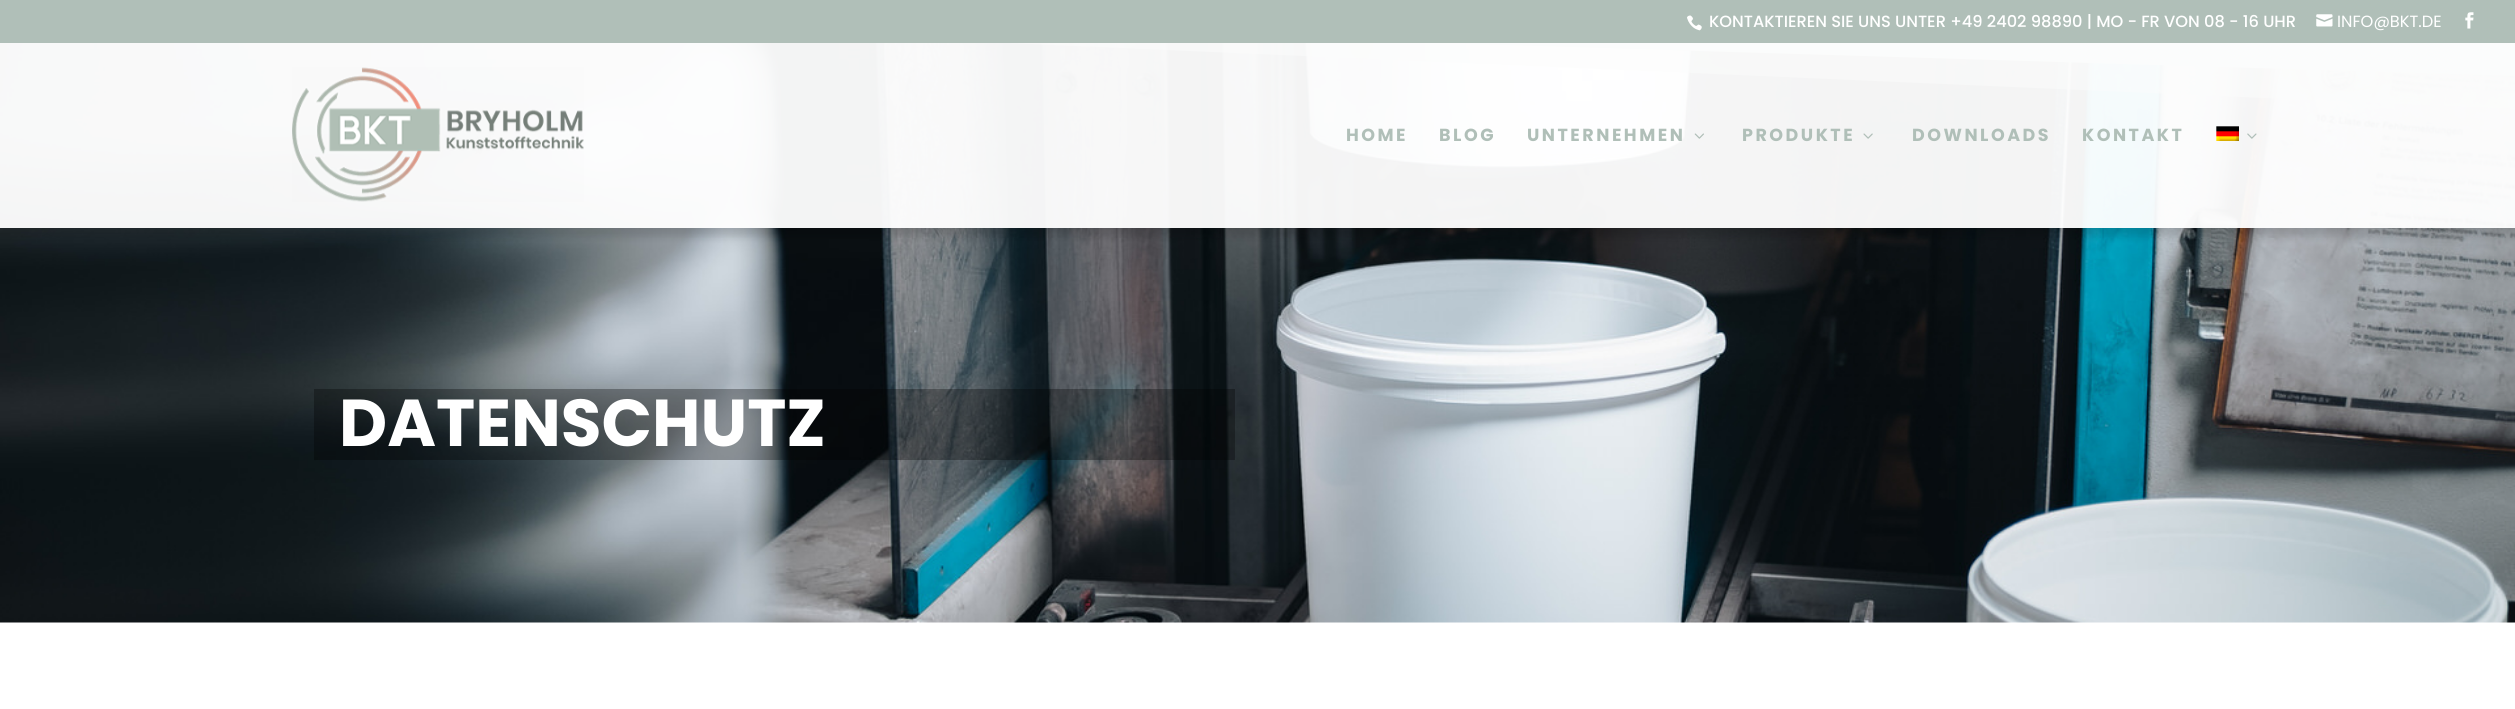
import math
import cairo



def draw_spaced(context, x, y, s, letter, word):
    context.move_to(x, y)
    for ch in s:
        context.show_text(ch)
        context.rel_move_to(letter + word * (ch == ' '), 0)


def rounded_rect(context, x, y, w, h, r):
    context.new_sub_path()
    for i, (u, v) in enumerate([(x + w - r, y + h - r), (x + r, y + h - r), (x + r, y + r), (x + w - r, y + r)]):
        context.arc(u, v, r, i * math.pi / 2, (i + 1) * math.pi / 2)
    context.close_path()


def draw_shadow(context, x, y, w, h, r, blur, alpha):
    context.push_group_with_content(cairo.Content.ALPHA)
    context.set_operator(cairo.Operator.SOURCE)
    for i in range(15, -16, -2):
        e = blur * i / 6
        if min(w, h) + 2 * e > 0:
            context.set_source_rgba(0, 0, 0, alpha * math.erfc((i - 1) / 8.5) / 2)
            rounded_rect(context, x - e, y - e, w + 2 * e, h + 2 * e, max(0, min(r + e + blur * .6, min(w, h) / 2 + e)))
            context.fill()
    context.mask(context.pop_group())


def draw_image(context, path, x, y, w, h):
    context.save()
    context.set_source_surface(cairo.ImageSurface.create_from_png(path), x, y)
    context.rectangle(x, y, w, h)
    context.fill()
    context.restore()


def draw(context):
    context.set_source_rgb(1, 1, 1)
    context.paint()
    draw_image(context, "images/9.png", 0, 43, 2515, 580)
    context.set_source_rgba(176 / 255, 191 / 255, 181 / 255, 0.5)
    context.new_path()
    context.move_to(2515, 109)
    context.line_to(2515, -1)
    context.line_to(0, -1)
    context.close_path()
    context.fill()
    context.set_source_rgb(176 / 255, 191 / 255, 181 / 255)
    context.new_path()
    context.move_to(2515, 76)
    context.line_to(2515, -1)
    context.line_to(0, -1)
    context.close_path()
    context.fill()
    context.save()
    context.set_fill_rule(cairo.FillRule.EVEN_ODD)
    context.new_path()
    context.move_to(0, 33)
    context.line_to(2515, 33)
    context.line_to(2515, 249)
    context.line_to(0, 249)
    context.close_path()
    context.move_to(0, 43)
    context.line_to(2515, 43)
    context.line_to(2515, 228)
    context.line_to(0, 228)
    context.close_path()
    context.clip()
    context.set_source_rgb(0, 0, 0)
    draw_shadow(context, -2, 46, 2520, 190, 0, 4, 0.15)
    context.restore()
    context.set_source_rgb(176 / 255, 191 / 255, 184 / 255)
    context.rectangle(0, 0, 2515, 43)
    context.fill()
    draw_image(context, "images/1.png", 1687, 15, 15, 16)
    draw_image(context, "images/2.png", 2316, 14, 17, 13)
    draw_image(context, "images/3.png", 2465, 12, 9, 17)
    context.set_source_rgba(1, 1, 1, 0.95)
    context.rectangle(0, 43, 2515, 185)
    context.fill()
    draw_image(context, "images/4.png", 292, 67, 292, 135)
    draw_image(context, "images/5.png", 1694, 133, 10, 6)
    draw_image(context, "images/6.png", 1863, 133, 10, 6)
    draw_image(context, "images/7.png", 2216, 126, 23, 15)
    draw_image(context, "images/8.png", 2247, 133, 10, 6)
    context.set_source_rgba(0, 0, 0, 0.31)
    context.rectangle(314, 389, 921, 71)
    context.fill()
    context.select_font_face("Poppins Medium")
    context.set_font_size(16.25)
    context.set_source_rgb(1, 1, 1)
    context.move_to(1709, 27)
    context.show_text("KONTAKTIEREN SIE UNS UNTER +49 2402 98890 | MO - FR VON 08 - 16 UHR")
    context.select_font_face("Poppins")
    context.move_to(2337, 27)
    context.show_text("INFO@BKT.DE")
    context.select_font_face("Poppins", cairo.FontSlant.NORMAL, cairo.FontWeight.BOLD)
    context.set_font_size(17.5)
    context.set_source_rgb(176 / 255, 191 / 255, 184 / 255)
    draw_spaced(context, 1346, 141, "HOME", 2.5, 0)
    draw_spaced(context, 1439, 141, "BLOG", 2.5, 0)
    draw_spaced(context, 1527, 141, "UNTERNEHMEN", 2.5, 0)
    draw_spaced(context, 1742, 141, "PRODUKTE", 2.5, 0)
    draw_spaced(context, 1912, 141, "DOWNLOADS", 2.5, 0)
    draw_spaced(context, 2082, 141, "KONTAKT", 2.5, 0)
    context.set_font_size(66.25)
    context.set_source_rgb(1, 1, 1)
    context.move_to(339, 446)
    context.show_text("DATENSCHUTZ")


surface = cairo.ImageSurface(cairo.Format.RGB24, 2515, 709)
context = cairo.Context(surface)
options = cairo.FontOptions()
options.set_hint_metrics(cairo.HintMetrics.OFF)
options.set_hint_style(cairo.HintStyle.NONE)
context.set_font_options(options)
context.set_miter_limit(4)
draw(context)
surface.write_to_png("out.png")
